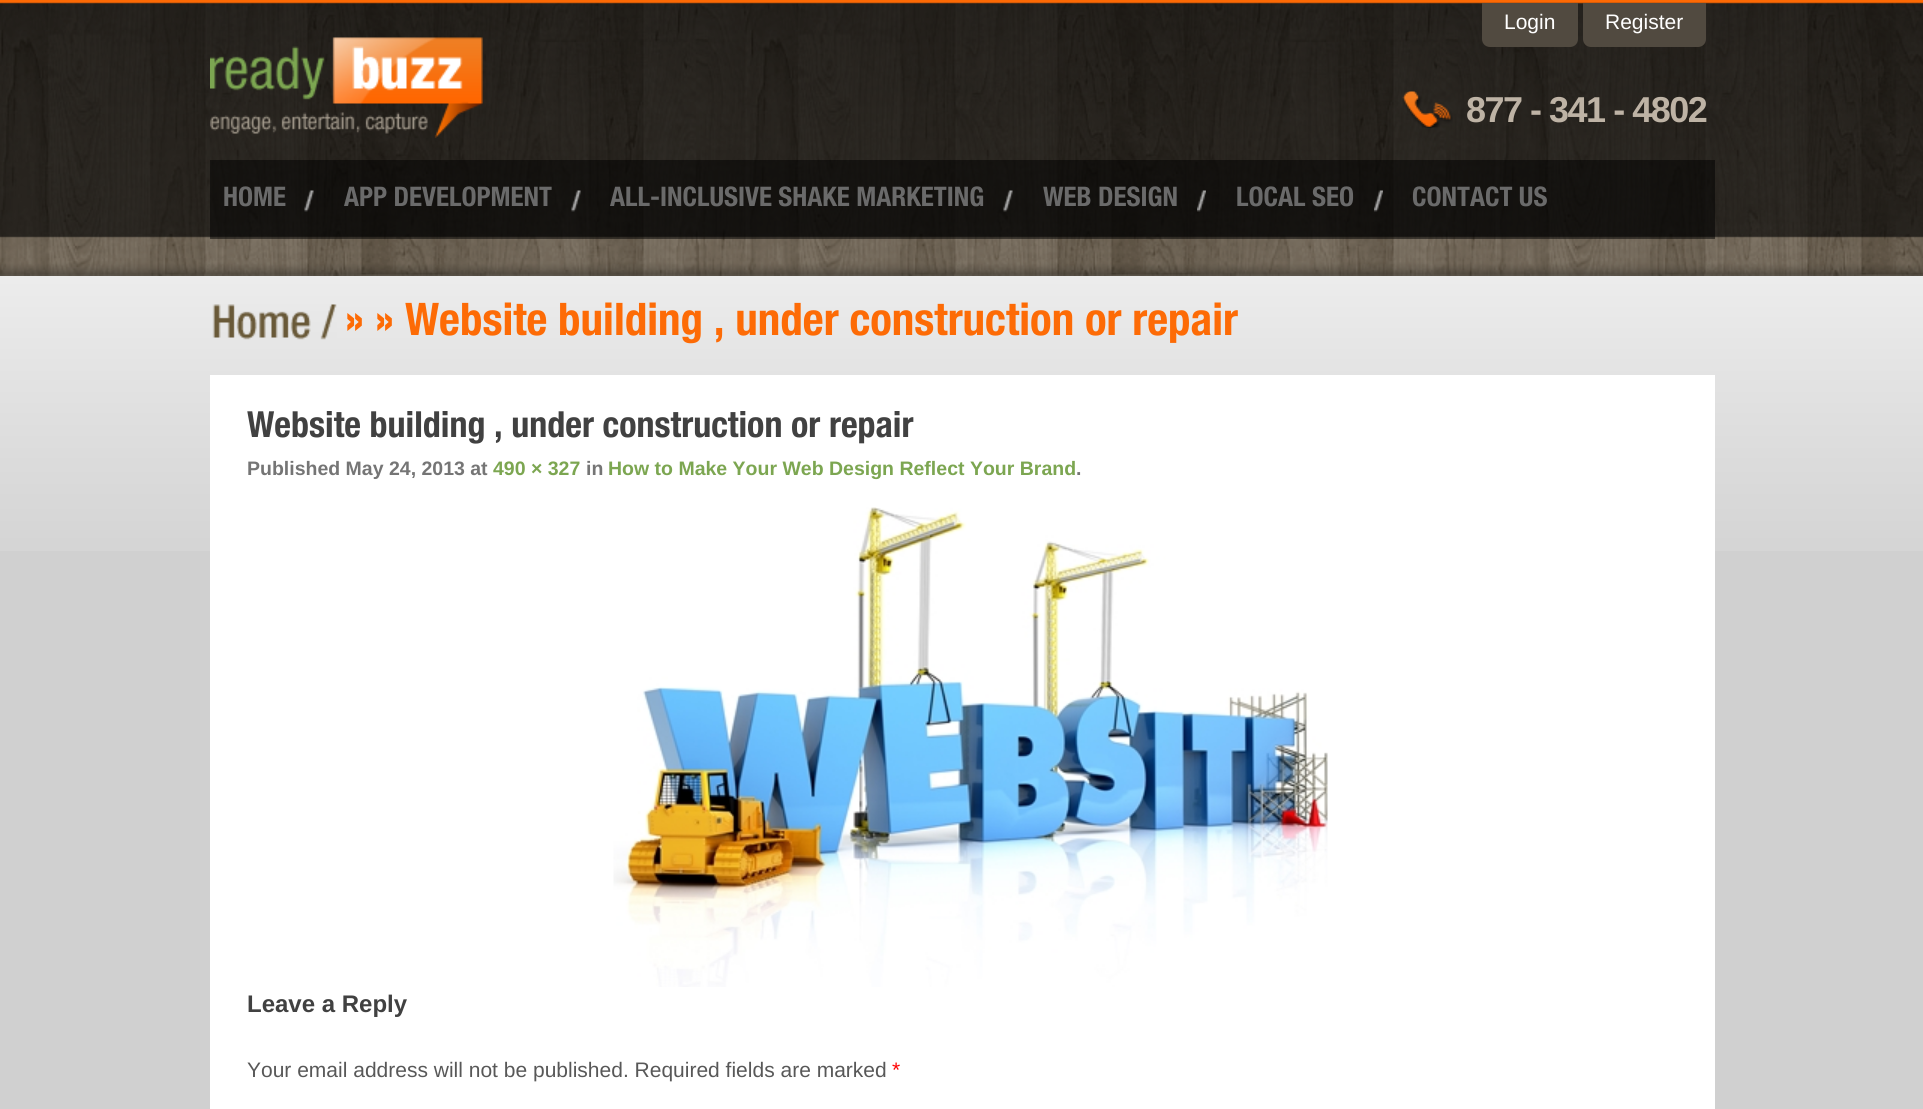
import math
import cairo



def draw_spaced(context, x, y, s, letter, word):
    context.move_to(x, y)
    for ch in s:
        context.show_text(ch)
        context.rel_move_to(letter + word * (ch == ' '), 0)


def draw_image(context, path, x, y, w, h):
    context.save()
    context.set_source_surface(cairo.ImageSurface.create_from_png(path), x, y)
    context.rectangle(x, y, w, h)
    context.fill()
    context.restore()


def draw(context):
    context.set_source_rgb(208 / 255, 208 / 255, 208 / 255)
    context.paint()
    draw_image(context, "images/1.png", 0, 276, 1923, 275)
    draw_image(context, "images/2.png", 0, 0, 1923, 276)
    draw_image(context, "images/3.png", 210, 37, 273, 101)
    context.set_source_rgb(81 / 255, 74 / 255, 64 / 255)
    context.new_path()
    context.move_to(1482, 3)
    context.line_to(1578, 3)
    context.line_to(1578, 39)
    context.curve_to(1578, 43.5, 1574.5, 47, 1570, 47)
    context.line_to(1490, 47)
    context.curve_to(1485.5, 47, 1482, 43.5, 1482, 39)
    context.close_path()
    context.fill()
    context.new_path()
    context.move_to(1583, 3)
    context.line_to(1706, 3)
    context.line_to(1706, 39)
    context.curve_to(1706, 43.5, 1702.5, 47, 1698, 47)
    context.line_to(1591, 47)
    context.curve_to(1586.5, 47, 1583, 43.5, 1583, 39)
    context.close_path()
    context.fill()
    draw_image(context, "images/4.png", 1402, 91, 51, 37)
    context.set_source_rgba(0, 0, 0, 0.5)
    context.rectangle(210, 160, 1505, 79)
    context.fill()
    draw_image(context, "images/5.png", 304, 190, 10, 22)
    draw_image(context, "images/6.png", 571, 190, 10, 22)
    draw_image(context, "images/7.png", 1003, 190, 10, 22)
    draw_image(context, "images/8.png", 1197, 190, 9, 22)
    draw_image(context, "images/9.png", 1374, 190, 9, 22)
    draw_image(context, "images/10.png", 212, 304, 125, 36)
    context.set_source_rgb(1, 1, 1)
    context.rectangle(210, 375, 1505, 734)
    context.fill()
    draw_image(context, "images/11.png", 613, 507, 715, 480)
    context.select_font_face("Liberation Sans")
    context.set_font_size(21)
    context.move_to(1504, 29)
    context.show_text("Login")
    context.move_to(1605, 29)
    context.show_text("Register")
    context.select_font_face("Liberation Sans", cairo.FontSlant.NORMAL, cairo.FontWeight.BOLD)
    context.set_font_size(36)
    context.set_source_rgb(190 / 255, 179 / 255, 165 / 255)
    draw_spaced(context, 1466, 122, "877 - 341 - 4802", -1.5, 0)
    context.select_font_face("Helvetica Neue", cairo.FontSlant.NORMAL, cairo.FontWeight.BOLD)
    context.set_font_size(27)
    context.set_source_rgb(106 / 255, 106 / 255, 106 / 255)
    context.move_to(223, 206)
    context.show_text("HOME")
    context.move_to(344, 206)
    context.show_text("APP DEVELOPMENT")
    context.move_to(610, 206)
    context.show_text("ALL-INCLUSIVE SHAKE MARKETING")
    context.move_to(1043, 206)
    context.show_text("WEB DESIGN")
    context.move_to(1236, 206)
    context.show_text("LOCAL SEO")
    context.move_to(1412, 206)
    context.show_text("CONTACT US")
    context.set_font_size(45)
    context.set_source_rgb(253 / 255, 107 / 255, 6 / 255)
    context.move_to(345, 335)
    context.show_text("» » Website building , under construction or repair")
    context.set_font_size(36)
    context.set_source_rgb(65 / 255, 65 / 255, 65 / 255)
    context.move_to(247, 437)
    context.show_text("Website building , under construction or repair")
    context.select_font_face("Liberation Sans", cairo.FontSlant.NORMAL, cairo.FontWeight.BOLD)
    context.set_font_size(19.5)
    context.set_source_rgb(117 / 255, 117 / 255, 117 / 255)
    context.move_to(247, 475)
    context.show_text("Published May 24, 2013 at")
    context.set_source_rgb(124 / 255, 166 / 255, 81 / 255)
    context.move_to(493, 475)
    context.show_text("490 × 327")
    context.set_source_rgb(117 / 255, 117 / 255, 117 / 255)
    context.move_to(586, 475)
    context.show_text("in")
    context.set_source_rgb(124 / 255, 166 / 255, 81 / 255)
    context.move_to(608, 475)
    context.show_text("How to Make Your Web Design Reflect Your Brand")
    context.set_source_rgb(117 / 255, 117 / 255, 117 / 255)
    context.move_to(1076, 475)
    context.show_text(".")
    context.set_font_size(24)
    context.set_source_rgb(65 / 255, 65 / 255, 65 / 255)
    context.move_to(247, 1012)
    context.show_text("Leave a Reply")
    context.select_font_face("Liberation Sans")
    context.set_font_size(21)
    context.set_source_rgb(88 / 255, 88 / 255, 88 / 255)
    context.move_to(247, 1077)
    context.show_text("Your email address will not be published. Required fields are marked")
    context.set_source_rgb(1, 0, 0)
    context.move_to(892, 1077)
    context.show_text("*")


surface = cairo.ImageSurface(cairo.Format.RGB24, 1923, 1109)
context = cairo.Context(surface)
options = cairo.FontOptions()
options.set_hint_metrics(cairo.HintMetrics.OFF)
options.set_hint_style(cairo.HintStyle.NONE)
context.set_font_options(options)
context.set_miter_limit(4)
draw(context)
surface.write_to_png("out.png")
